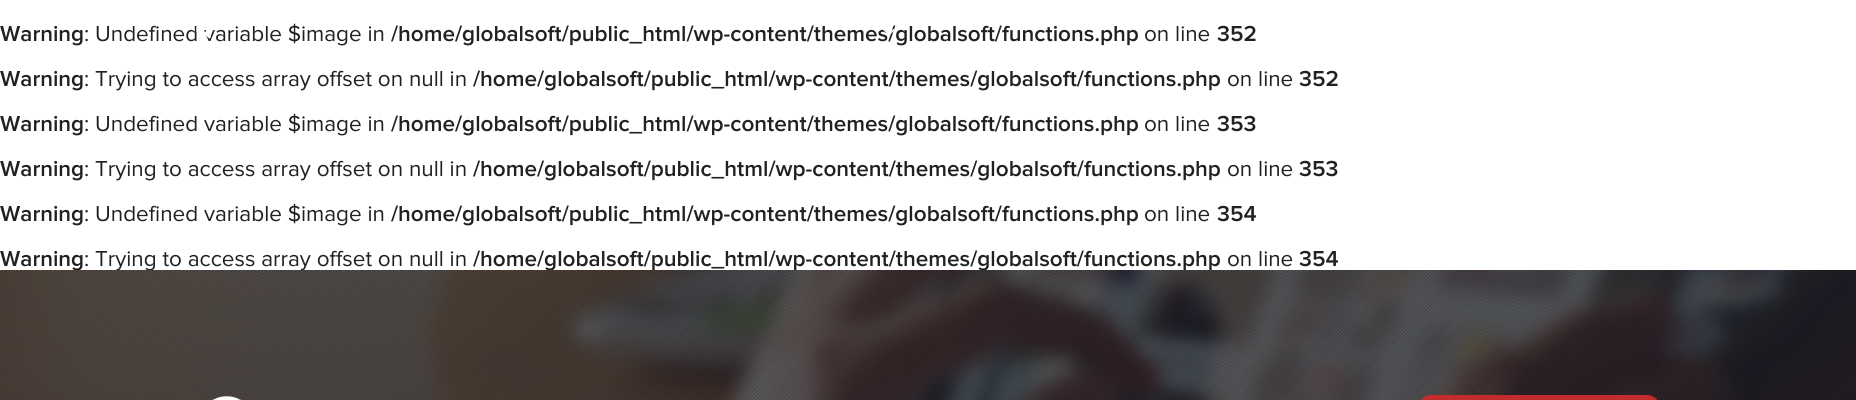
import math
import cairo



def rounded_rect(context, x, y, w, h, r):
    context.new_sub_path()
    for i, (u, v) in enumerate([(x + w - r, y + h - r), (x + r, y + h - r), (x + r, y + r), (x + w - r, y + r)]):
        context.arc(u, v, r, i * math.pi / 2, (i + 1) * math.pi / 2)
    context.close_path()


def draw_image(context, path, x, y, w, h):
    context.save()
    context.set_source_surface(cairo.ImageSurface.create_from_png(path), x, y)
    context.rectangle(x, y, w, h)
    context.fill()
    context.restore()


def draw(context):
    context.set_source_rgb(1, 1, 1)
    context.paint()
    context.select_font_face("Proxima Nova SemiBold")
    context.set_font_size(22.5)
    context.set_source_rgb(33 / 255, 33 / 255, 33 / 255)
    context.move_to(0, 41)
    context.show_text("Warning")
    context.select_font_face("Proxima Nova")
    context.move_to(84, 41)
    context.show_text(": Undefined variable $image in")
    context.select_font_face("Proxima Nova SemiBold")
    context.move_to(391, 41)
    context.show_text("/home/globalsoft/public_html/wp-content/themes/globalsoft/functions.php")
    context.move_to(1217, 41)
    context.show_text("352")
    draw_image(context, "images/1.png", 196, 26, 15, 13)
    draw_image(context, "images/2.png", 883, 29, 11, 6)
    context.select_font_face("Proxima Nova")
    context.move_to(1144, 41)
    context.show_text("on line")
    context.select_font_face("Proxima Nova SemiBold")
    context.move_to(0, 86)
    context.show_text("Warning")
    context.select_font_face("Proxima Nova")
    context.move_to(84, 86)
    context.show_text(": Trying to access array offset on null in")
    context.select_font_face("Proxima Nova SemiBold")
    context.move_to(473, 86)
    context.show_text("/home/globalsoft/public_html/wp-content/themes/globalsoft/functions.php")
    context.select_font_face("Proxima Nova")
    context.move_to(1227, 86)
    context.show_text("on line")
    context.select_font_face("Proxima Nova SemiBold")
    context.move_to(1299, 86)
    context.show_text("352")
    context.move_to(0, 131)
    context.show_text("Warning")
    context.select_font_face("Proxima Nova")
    context.move_to(84, 131)
    context.show_text(": Undefined variable $image in")
    context.select_font_face("Proxima Nova SemiBold")
    context.move_to(391, 131)
    context.show_text("/home/globalsoft/public_html/wp-content/themes/globalsoft/functions.php")
    context.select_font_face("Proxima Nova")
    context.move_to(1144, 131)
    context.show_text("on line")
    context.select_font_face("Proxima Nova SemiBold")
    context.move_to(1217, 131)
    context.show_text("353")
    context.move_to(0, 176)
    context.show_text("Warning")
    context.select_font_face("Proxima Nova")
    context.move_to(84, 176)
    context.show_text(": Trying to access array offset on null in")
    context.select_font_face("Proxima Nova SemiBold")
    context.move_to(473, 176)
    context.show_text("/home/globalsoft/public_html/wp-content/themes/globalsoft/functions.php")
    context.select_font_face("Proxima Nova")
    context.move_to(1227, 176)
    context.show_text("on line")
    context.select_font_face("Proxima Nova SemiBold")
    context.move_to(1299, 176)
    context.show_text("353")
    context.move_to(0, 221)
    context.show_text("Warning")
    context.select_font_face("Proxima Nova")
    context.move_to(84, 221)
    context.show_text(": Undefined variable $image in")
    context.select_font_face("Proxima Nova SemiBold")
    context.move_to(391, 221)
    context.show_text("/home/globalsoft/public_html/wp-content/themes/globalsoft/functions.php")
    context.select_font_face("Proxima Nova")
    context.move_to(1144, 221)
    context.show_text("on line")
    context.select_font_face("Proxima Nova SemiBold")
    context.move_to(1217, 221)
    context.show_text("354")
    context.move_to(0, 266)
    context.show_text("Warning")
    context.select_font_face("Proxima Nova")
    context.move_to(84, 266)
    context.show_text(": Trying to access array offset on null in")
    context.select_font_face("Proxima Nova SemiBold")
    context.move_to(473, 266)
    context.show_text("/home/globalsoft/public_html/wp-content/themes/globalsoft/functions.php")
    context.select_font_face("Proxima Nova")
    context.move_to(1227, 266)
    context.show_text("on line")
    context.select_font_face("Proxima Nova SemiBold")
    context.move_to(1299, 266)
    context.show_text("354")
    draw_image(context, "images/3.png", 0, 270, 1856, 130)
    draw_image(context, "images/4.png", 212, 396, 30, 4)
    context.set_source_rgb(195 / 255, 44 / 255, 44 / 255)
    rounded_rect(context, 1418, 395, 242, 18, 13)
    context.fill()


surface = cairo.ImageSurface(cairo.Format.RGB24, 1856, 400)
context = cairo.Context(surface)
options = cairo.FontOptions()
options.set_hint_metrics(cairo.HintMetrics.OFF)
options.set_hint_style(cairo.HintStyle.NONE)
context.set_font_options(options)
context.set_miter_limit(4)
draw(context)
surface.write_to_png("out.png")
